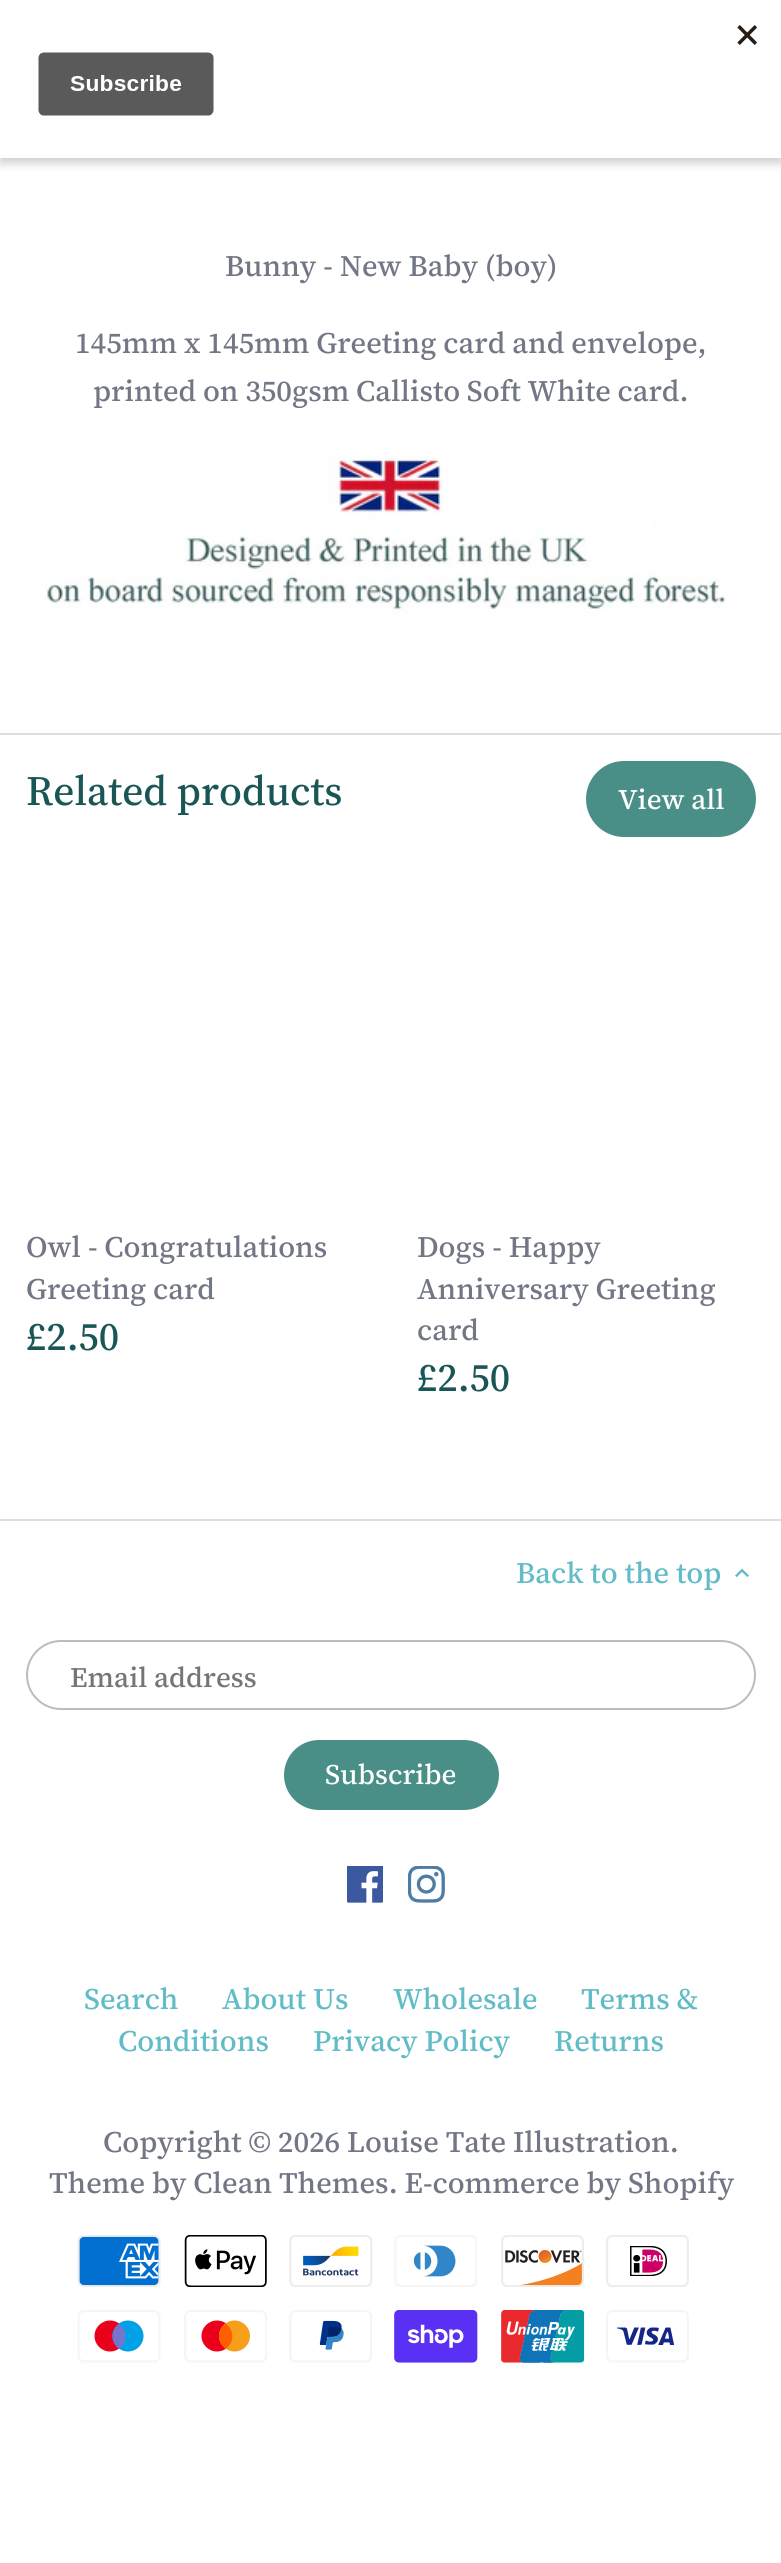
import math
import cairo



def draw_spaced(context, x, y, s, letter, word):
    context.move_to(x, y)
    for ch in s:
        context.show_text(ch)
        context.rel_move_to(letter + word * (ch == ' '), 0)


def rounded_rect(context, x, y, w, h, r):
    context.new_sub_path()
    for i, (u, v) in enumerate([(x + w - r, y + h - r), (x + r, y + h - r), (x + r, y + r), (x + w - r, y + r)]):
        context.arc(u, v, r, i * math.pi / 2, (i + 1) * math.pi / 2)
    context.close_path()


def draw_shadow(context, x, y, w, h, r, blur, alpha):
    context.push_group_with_content(cairo.Content.ALPHA)
    context.set_operator(cairo.Operator.SOURCE)
    for i in range(15, -16, -2):
        e = blur * i / 6
        if min(w, h) + 2 * e > 0:
            context.set_source_rgba(0, 0, 0, alpha * math.erfc((i - 1) / 8.5) / 2)
            rounded_rect(context, x - e, y - e, w + 2 * e, h + 2 * e, max(0, min(r + e + blur * .6, min(w, h) / 2 + e)))
            context.fill()
    context.mask(context.pop_group())


def draw_image(context, path, x, y, w, h):
    context.save()
    context.set_source_surface(cairo.ImageSurface.create_from_png(path), x, y)
    context.rectangle(x, y, w, h)
    context.fill()
    context.restore()


def draw(context):
    context.set_source_rgb(1, 1, 1)
    context.paint()
    context.set_source_rgb(0, 0, 0)
    draw_shadow(context, 0, 5, 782, 158, 0, 5, 0.2)
    context.set_source_rgb(1, 1, 1)
    context.rectangle(0, 0, 781, 158)
    context.fill()
    draw_image(context, "images/1.png", 38, 25, 719, 91)
    draw_image(context, "images/2.png", 45, 456, 681, 158)
    context.set_source_rgb(221 / 255, 221 / 255, 221 / 255)
    context.rectangle(0, 733, 781, 2)
    context.fill()
    context.set_source_rgb(74 / 255, 143 / 255, 135 / 255)
    rounded_rect(context, 588, 763, 166, 72, 36)
    context.fill_preserve()
    context.set_line_width(4)
    context.stroke()
    context.set_source_rgb(221 / 255, 221 / 255, 221 / 255)
    context.rectangle(0, 1519, 781, 2)
    context.fill()
    draw_image(context, "images/3.png", 735, 1568, 14, 10)
    rounded_rect(context, 27, 1641, 728, 68, 34)
    context.set_source_rgb(188 / 255, 188 / 255, 188 / 255)
    context.set_line_width(2)
    context.stroke()
    context.set_source_rgb(74 / 255, 143 / 255, 135 / 255)
    rounded_rect(context, 285, 1741, 213, 68, 34)
    context.fill_preserve()
    context.stroke()
    draw_image(context, "images/4.png", 347, 1866, 36, 37)
    draw_image(context, "images/5.png", 408, 1866, 37, 37)
    draw_image(context, "images/6.png", 77, 2235, 84, 52)
    draw_image(context, "images/7.png", 184, 2235, 83, 52)
    draw_image(context, "images/8.png", 289, 2235, 84, 52)
    draw_image(context, "images/9.png", 394, 2235, 83, 52)
    draw_image(context, "images/10.png", 501, 2235, 83, 52)
    draw_image(context, "images/11.png", 606, 2235, 83, 52)
    draw_image(context, "images/12.png", 77, 2310, 84, 53)
    draw_image(context, "images/13.png", 184, 2310, 83, 53)
    draw_image(context, "images/14.png", 289, 2310, 83, 53)
    draw_image(context, "images/15.png", 394, 2310, 84, 53)
    draw_image(context, "images/16.png", 501, 2310, 84, 53)
    draw_image(context, "images/17.png", 606, 2310, 83, 53)
    context.select_font_face("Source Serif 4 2 Medium")
    context.set_font_size(29.75)
    context.set_source_rgb(114 / 255, 118 / 255, 133 / 255)
    context.move_to(225, 276)
    context.show_text("Bunny - New Baby (boy)")
    context.move_to(75, 353)
    context.show_text("145mm x 145mm Greeting card and envelope,")
    draw_spaced(context, 93, 401, "printed on 350gsm Callisto Soft White card.", 0, -0.25)
    context.select_font_face("Source Serif 4 Medium")
    context.set_font_size(41.75)
    context.set_source_rgb(27 / 255, 86 / 255, 86 / 255)
    context.move_to(26, 805)
    context.show_text("Related products")
    context.select_font_face("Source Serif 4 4 Medium")
    context.set_font_size(28.25)
    context.set_source_rgb(1, 1, 1)
    context.move_to(618, 809)
    context.show_text("View all")
    context.select_font_face("Source Serif 4 2 Medium")
    context.set_font_size(29.75)
    context.set_source_rgb(114 / 255, 118 / 255, 133 / 255)
    context.move_to(26, 1257)
    context.show_text("Owl - Congratulations")
    context.move_to(26, 1299)
    context.show_text("Greeting card")
    context.select_font_face("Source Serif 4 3 Medium")
    context.set_font_size(40)
    context.set_source_rgb(27 / 255, 86 / 255, 86 / 255)
    context.move_to(26, 1350)
    context.show_text("£2.50")
    context.select_font_face("Source Serif 4 2 Medium")
    context.set_font_size(29.75)
    context.set_source_rgb(114 / 255, 118 / 255, 133 / 255)
    context.move_to(417, 1257)
    context.show_text("Dogs - Happy")
    context.move_to(417, 1299)
    context.show_text("Anniversary Greeting")
    context.move_to(417, 1340)
    context.show_text("card")
    context.select_font_face("Source Serif 4 3 Medium")
    context.set_font_size(40)
    context.set_source_rgb(27 / 255, 86 / 255, 86 / 255)
    context.move_to(417, 1391)
    context.show_text("£2.50")
    context.select_font_face("Source Serif 4 2 Medium")
    context.set_font_size(29.75)
    context.set_source_rgb(98 / 255, 188 / 255, 199 / 255)
    context.move_to(516, 1583)
    context.show_text("Back to the top")
    context.select_font_face("Source Serif 4 4 Medium")
    context.set_font_size(28.25)
    context.set_source_rgb(117 / 255, 117 / 255, 117 / 255)
    context.move_to(70, 1687)
    context.show_text("Email address")
    context.set_source_rgb(1, 1, 1)
    context.move_to(325, 1784)
    context.show_text("Subscribe")
    context.select_font_face("Source Serif 4 2 Medium")
    context.set_font_size(29.75)
    context.set_source_rgb(98 / 255, 188 / 255, 199 / 255)
    context.move_to(84, 2009)
    context.show_text("Search")
    context.move_to(222, 2009)
    context.show_text("About Us")
    context.move_to(393, 2009)
    context.show_text("Wholesale")
    context.move_to(581, 2009)
    context.show_text("Terms &")
    context.move_to(118, 2051)
    context.show_text("Conditions")
    context.move_to(313, 2051)
    context.show_text("Privacy Policy")
    context.move_to(554, 2051)
    context.show_text("Returns")
    context.set_source_rgb(114 / 255, 118 / 255, 133 / 255)
    context.move_to(103, 2152)
    context.show_text("Copyright © 2026 Louise Tate Illustration.")
    context.move_to(49, 2193)
    context.show_text("Theme by Clean Themes. E-commerce by Shopify")


surface = cairo.ImageSurface(cairo.Format.RGB24, 781, 2563)
context = cairo.Context(surface)
options = cairo.FontOptions()
options.set_hint_metrics(cairo.HintMetrics.OFF)
options.set_hint_style(cairo.HintStyle.NONE)
context.set_font_options(options)
context.set_miter_limit(4)
draw(context)
surface.write_to_png("out.png")
